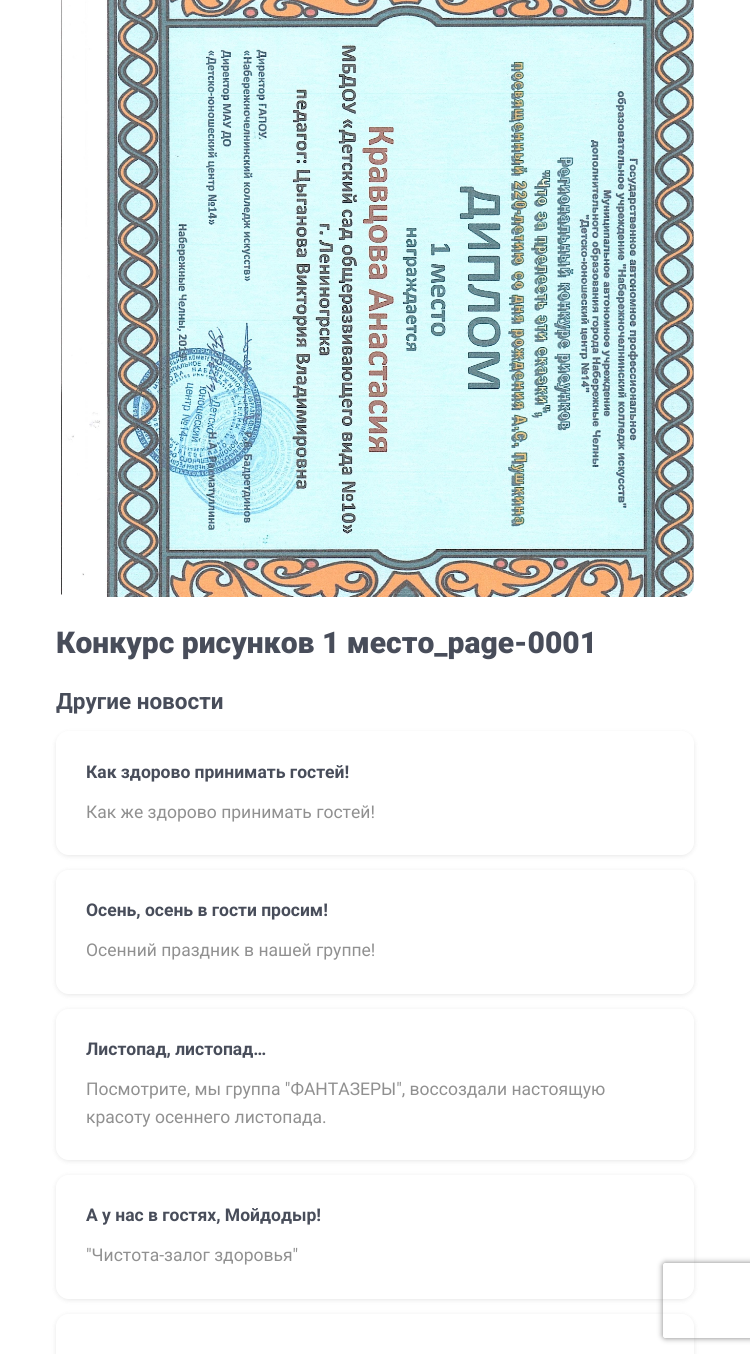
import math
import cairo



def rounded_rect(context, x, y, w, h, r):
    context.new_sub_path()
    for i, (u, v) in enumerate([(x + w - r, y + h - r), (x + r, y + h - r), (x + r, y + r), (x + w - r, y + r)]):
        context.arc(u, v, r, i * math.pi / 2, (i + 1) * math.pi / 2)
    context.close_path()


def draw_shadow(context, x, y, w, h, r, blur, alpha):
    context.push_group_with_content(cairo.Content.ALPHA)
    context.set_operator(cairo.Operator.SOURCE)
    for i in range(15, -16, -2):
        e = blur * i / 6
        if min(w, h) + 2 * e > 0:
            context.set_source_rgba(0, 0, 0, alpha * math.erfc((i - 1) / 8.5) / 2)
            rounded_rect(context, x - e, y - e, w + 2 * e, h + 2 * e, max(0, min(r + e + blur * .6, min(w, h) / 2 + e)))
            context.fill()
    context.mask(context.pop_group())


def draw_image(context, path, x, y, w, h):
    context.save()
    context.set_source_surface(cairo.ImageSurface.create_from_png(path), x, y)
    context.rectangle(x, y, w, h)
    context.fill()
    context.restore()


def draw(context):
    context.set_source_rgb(1, 1, 1)
    context.paint()
    draw_image(context, "images/1.png", 60, 0, 634, 597)
    context.save()
    context.set_fill_rule(cairo.FillRule.EVEN_ODD)
    context.new_path()
    context.move_to(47, 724)
    context.line_to(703, 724)
    context.line_to(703, 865)
    context.line_to(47, 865)
    context.close_path()
    context.move_to(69, 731)
    context.line_to(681, 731)
    context.curve_to(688, 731, 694, 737, 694, 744)
    context.line_to(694, 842)
    context.curve_to(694, 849, 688, 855, 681, 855)
    context.line_to(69, 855)
    context.curve_to(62, 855, 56, 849, 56, 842)
    context.line_to(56, 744)
    context.curve_to(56, 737, 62, 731, 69, 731)
    context.close_path()
    context.clip()
    context.set_source_rgb(0, 0, 0)
    draw_shadow(context, 56, 733, 638, 123, 13, 2.5, 0.1)
    context.restore()
    context.save()
    context.set_fill_rule(cairo.FillRule.EVEN_ODD)
    context.new_path()
    context.move_to(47, 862)
    context.line_to(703, 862)
    context.line_to(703, 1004)
    context.line_to(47, 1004)
    context.close_path()
    context.move_to(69, 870)
    context.line_to(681, 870)
    context.curve_to(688, 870, 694, 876, 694, 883)
    context.line_to(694, 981)
    context.curve_to(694, 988, 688, 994, 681, 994)
    context.line_to(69, 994)
    context.curve_to(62, 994, 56, 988, 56, 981)
    context.line_to(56, 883)
    context.curve_to(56, 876, 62, 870, 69, 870)
    context.close_path()
    context.clip()
    context.set_source_rgb(0, 0, 0)
    draw_shadow(context, 56, 871, 638, 124, 13, 2.5, 0.1)
    context.restore()
    context.save()
    context.set_fill_rule(cairo.FillRule.EVEN_ODD)
    context.new_path()
    context.move_to(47, 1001)
    context.line_to(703, 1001)
    context.line_to(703, 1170)
    context.line_to(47, 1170)
    context.close_path()
    context.move_to(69, 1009)
    context.line_to(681, 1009)
    context.curve_to(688, 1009, 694, 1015, 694, 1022)
    context.line_to(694, 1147)
    context.curve_to(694, 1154, 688, 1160, 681, 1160)
    context.line_to(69, 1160)
    context.curve_to(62, 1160, 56, 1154, 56, 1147)
    context.line_to(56, 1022)
    context.curve_to(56, 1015, 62, 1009, 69, 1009)
    context.close_path()
    context.clip()
    context.set_source_rgb(0, 0, 0)
    draw_shadow(context, 56, 1010, 638, 151, 13, 2.5, 0.1)
    context.restore()
    context.save()
    context.set_fill_rule(cairo.FillRule.EVEN_ODD)
    context.new_path()
    context.move_to(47, 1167)
    context.line_to(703, 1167)
    context.line_to(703, 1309)
    context.line_to(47, 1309)
    context.close_path()
    context.move_to(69, 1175)
    context.line_to(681, 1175)
    context.curve_to(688, 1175, 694, 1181, 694, 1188)
    context.line_to(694, 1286)
    context.curve_to(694, 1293, 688, 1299, 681, 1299)
    context.line_to(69, 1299)
    context.curve_to(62, 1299, 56, 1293, 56, 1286)
    context.line_to(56, 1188)
    context.curve_to(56, 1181, 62, 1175, 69, 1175)
    context.close_path()
    context.clip()
    context.set_source_rgb(0, 0, 0)
    draw_shadow(context, 56, 1176, 638, 124, 13, 2.5, 0.1)
    context.restore()
    context.save()
    context.set_fill_rule(cairo.FillRule.EVEN_ODD)
    context.new_path()
    context.move_to(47, 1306)
    context.line_to(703, 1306)
    context.line_to(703, 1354)
    context.line_to(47, 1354)
    context.close_path()
    context.move_to(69, 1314)
    context.line_to(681, 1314)
    context.curve_to(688, 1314, 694, 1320, 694, 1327)
    context.line_to(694, 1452)
    context.curve_to(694, 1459, 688, 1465, 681, 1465)
    context.line_to(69, 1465)
    context.curve_to(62, 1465, 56, 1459, 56, 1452)
    context.line_to(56, 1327)
    context.curve_to(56, 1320, 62, 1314, 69, 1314)
    context.close_path()
    context.clip()
    context.set_source_rgb(0, 0, 0)
    draw_shadow(context, 56, 1315, 638, 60, 13, 2.5, 0.1)
    context.restore()
    context.save()
    context.set_fill_rule(cairo.FillRule.EVEN_ODD)
    context.new_path()
    context.move_to(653, 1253)
    context.line_to(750, 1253)
    context.line_to(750, 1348)
    context.line_to(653, 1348)
    context.close_path()
    context.move_to(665.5, 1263)
    context.line_to(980.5, 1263)
    context.curve_to(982, 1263, 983, 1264, 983, 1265.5)
    context.line_to(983, 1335.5)
    context.curve_to(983, 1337, 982, 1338, 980.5, 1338)
    context.line_to(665.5, 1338)
    context.curve_to(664, 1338, 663, 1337, 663, 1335.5)
    context.line_to(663, 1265.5)
    context.curve_to(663, 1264, 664, 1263, 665.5, 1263)
    context.close_path()
    context.clip()
    context.set_source_rgb(128 / 255, 128 / 255, 128 / 255)
    draw_shadow(context, 663, 1263, 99, 75, 2.5, 3, 1)
    context.restore()
    context.select_font_face("Roboto Black")
    context.set_font_size(30)
    context.set_source_rgb(72 / 255, 77 / 255, 90 / 255)
    context.move_to(56, 653)
    context.show_text("Конкурс рисунков 1 место_page-0001")
    context.select_font_face("Roboto", cairo.FontSlant.NORMAL, cairo.FontWeight.BOLD)
    context.set_font_size(22.5)
    context.move_to(56, 709)
    context.show_text("Другие новости")
    context.set_font_size(17.5)
    context.move_to(86, 778)
    context.show_text("Как здорово принимать гостей!")
    context.select_font_face("Roboto")
    context.set_source_rgb(144 / 255, 144 / 255, 144 / 255)
    context.move_to(86, 818)
    context.show_text("Как же здорово принимать гостей!")
    context.select_font_face("Roboto", cairo.FontSlant.NORMAL, cairo.FontWeight.BOLD)
    context.set_source_rgb(72 / 255, 77 / 255, 90 / 255)
    context.move_to(86, 916)
    context.show_text("Осень, осень в гости просим!")
    context.select_font_face("Roboto")
    context.set_source_rgb(144 / 255, 144 / 255, 144 / 255)
    context.move_to(86, 956)
    context.show_text("Осенний праздник в нашей группе!")
    context.select_font_face("Roboto", cairo.FontSlant.NORMAL, cairo.FontWeight.BOLD)
    context.set_source_rgb(72 / 255, 77 / 255, 90 / 255)
    context.move_to(86, 1055)
    context.show_text("Листопад, листопад…")
    context.select_font_face("Roboto")
    context.set_source_rgb(144 / 255, 144 / 255, 144 / 255)
    context.move_to(86, 1095)
    context.show_text("Посмотрите, мы группа \"ФАНТАЗЕРЫ\", воссоздали настоящую")
    context.move_to(86, 1123)
    context.show_text("красоту осеннего листопада.")
    context.select_font_face("Roboto", cairo.FontSlant.NORMAL, cairo.FontWeight.BOLD)
    context.set_source_rgb(72 / 255, 77 / 255, 90 / 255)
    context.move_to(86, 1221)
    context.show_text("А у нас в гостях, Мойдодыр!")
    context.select_font_face("Roboto")
    context.set_source_rgb(144 / 255, 144 / 255, 144 / 255)
    context.move_to(86, 1261)
    context.show_text("\"Чистота-залог здоровья\"")


surface = cairo.ImageSurface(cairo.Format.RGB24, 750, 1354)
context = cairo.Context(surface)
options = cairo.FontOptions()
options.set_hint_metrics(cairo.HintMetrics.OFF)
options.set_hint_style(cairo.HintStyle.NONE)
context.set_font_options(options)
context.set_miter_limit(4)
draw(context)
surface.write_to_png("out.png")
